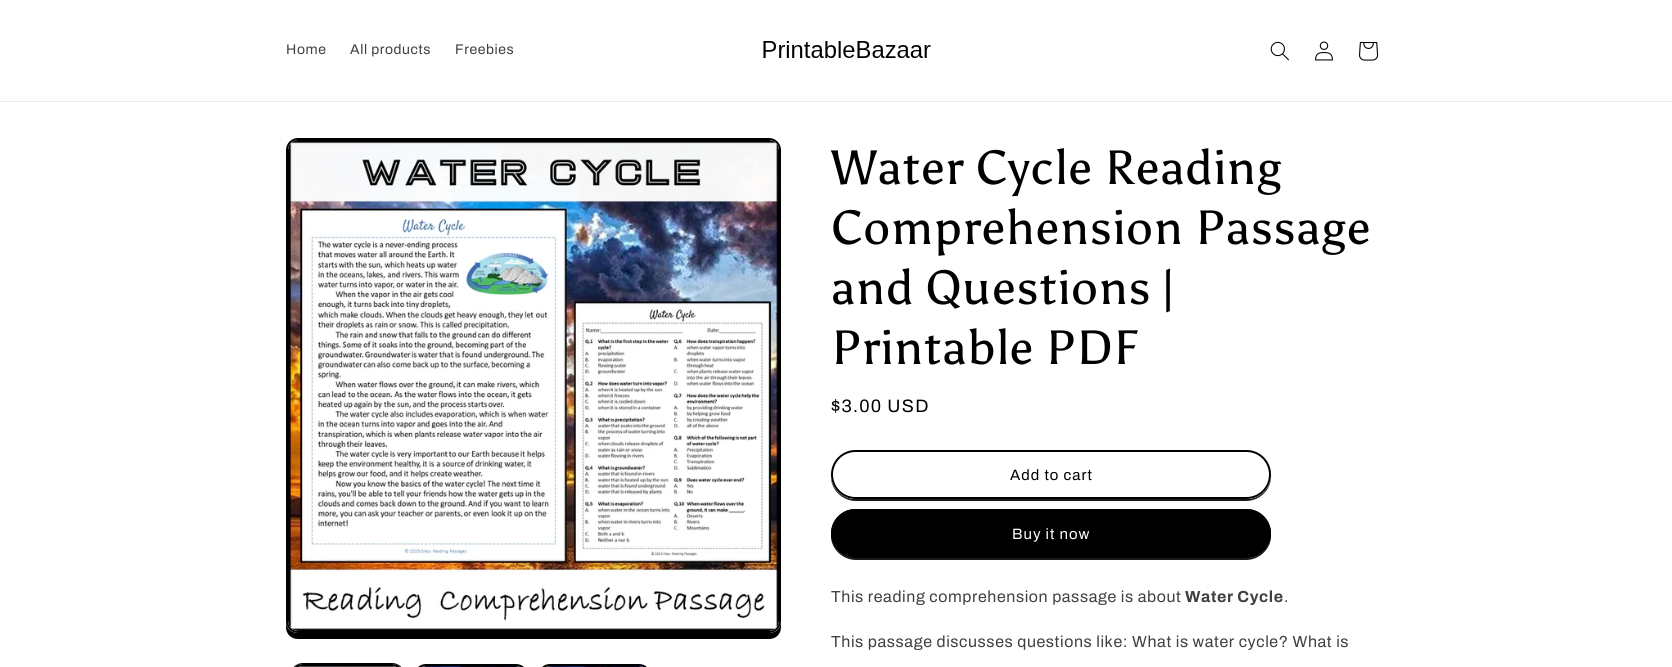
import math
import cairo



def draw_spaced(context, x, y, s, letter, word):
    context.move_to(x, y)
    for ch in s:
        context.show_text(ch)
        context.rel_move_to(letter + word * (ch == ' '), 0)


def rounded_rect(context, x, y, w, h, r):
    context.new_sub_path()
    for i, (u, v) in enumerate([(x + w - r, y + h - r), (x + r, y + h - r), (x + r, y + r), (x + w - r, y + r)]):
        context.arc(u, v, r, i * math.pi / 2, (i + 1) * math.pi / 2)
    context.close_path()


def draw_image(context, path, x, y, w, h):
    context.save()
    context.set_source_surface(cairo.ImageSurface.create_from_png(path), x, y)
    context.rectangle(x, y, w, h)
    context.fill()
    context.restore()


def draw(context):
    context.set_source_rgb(1, 1, 1)
    context.paint()
    context.set_source_rgb(235 / 255, 235 / 255, 235 / 255)
    context.rectangle(0, 101, 1672, 1)
    context.fill()
    draw_image(context, "images/1.png", 763, 41, 168, 17)
    draw_image(context, "images/2.png", 1270, 41, 19, 20)
    draw_image(context, "images/3.png", 1315, 41, 18, 20)
    draw_image(context, "images/4.png", 1359, 42, 20, 19)
    context.set_source_rgb(0, 0, 0)
    context.new_path()
    context.move_to(286, 621)
    context.line_to(286, 627)
    context.curve_to(286, 634, 291, 639, 298, 639)
    context.line_to(769, 639)
    context.curve_to(776, 639, 781, 634, 781, 627)
    context.line_to(781, 621)
    context.curve_to(781, 628, 776, 633, 769, 633)
    context.line_to(298, 633)
    context.curve_to(291, 633, 286, 628, 286, 621)
    context.close_path()
    context.fill()
    context.set_source_rgb(1, 1, 1)
    rounded_rect(context, 287, 139, 493, 493, 11)
    context.fill_preserve()
    context.set_source_rgb(0, 0, 0)
    context.stroke()
    draw_image(context, "images/5.png", 288, 140, 491, 491)
    rounded_rect(context, 290.5, 663.5, 114, 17, 12.5)
    context.set_line_width(1)
    context.stroke()
    rounded_rect(context, 292, 665, 111, 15, 11)
    context.set_line_width(2)
    context.stroke()
    draw_image(context, "images/6.png", 299, 666, 97, 1)
    rounded_rect(context, 415, 665, 112, 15, 11)
    context.stroke()
    draw_image(context, "images/7.png", 422, 666, 98, 1)
    rounded_rect(context, 539, 665, 111, 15, 11)
    context.stroke()
    draw_image(context, "images/8.png", 546, 666, 97, 1)
    context.set_source_rgb(26 / 255, 26 / 255, 26 / 255)
    context.new_path()
    context.move_to(831, 475)
    context.curve_to(830, 489, 842, 501, 856, 501)
    context.line_to(1246, 501)
    context.curve_to(1260, 501, 1272, 489, 1271, 475)
    context.curve_to(1270, 489, 1260, 499, 1246, 499)
    context.line_to(856, 499)
    context.curve_to(842, 499, 832, 489, 831, 475)
    context.close_path()
    context.fill()
    context.set_source_rgb(1, 1, 1)
    rounded_rect(context, 831, 450, 440, 49, 24.5)
    context.fill()
    rounded_rect(context, 832, 451, 438, 47, 23.5)
    context.stroke()
    rounded_rect(context, 832, 451, 438, 47, 23.5)
    context.set_source_rgb(0, 0, 0)
    context.stroke()
    context.set_source_rgb(26 / 255, 26 / 255, 26 / 255)
    context.new_path()
    context.move_to(831, 534)
    context.curve_to(830, 548, 842, 560, 856, 560)
    context.line_to(1246, 560)
    context.curve_to(1260, 560, 1272, 548, 1271, 534)
    context.curve_to(1270, 548, 1260, 558, 1246, 558)
    context.line_to(856, 558)
    context.curve_to(842, 558, 832, 548, 831, 534)
    context.close_path()
    context.fill()
    context.set_source_rgb(0, 0, 0)
    rounded_rect(context, 831, 509, 440, 49, 24.5)
    context.fill()
    rounded_rect(context, 832, 510, 438, 47, 23.5)
    context.stroke()
    context.select_font_face("Archivo")
    context.set_font_size(14)
    context.set_source_rgb(64 / 255, 64 / 255, 64 / 255)
    draw_spaced(context, 286, 54, "Home", 0.6, 0)
    draw_spaced(context, 350, 54, "All products", 0.6, 0)
    draw_spaced(context, 455, 54, "Freebies", 0.6, 0)
    context.select_font_face("Asul")
    context.set_font_size(48)
    context.set_source_rgb(0, 0, 0)
    draw_spaced(context, 831, 184, "Water Cycle Reading", 0.75, 0)
    draw_spaced(context, 831, 244, "Comprehension Passage", 0.75, 0)
    draw_spaced(context, 831, 304, "and Questions |", 0.75, 0)
    draw_spaced(context, 831, 364, "Printable PDF", 0.75, 0)
    context.select_font_face("Archivo")
    context.set_font_size(18)
    draw_spaced(context, 831, 412, "$3.00 USD", 1.25, 0)
    context.set_font_size(15)
    draw_spaced(context, 1010, 480, "Add to cart", 1, 0)
    context.set_source_rgb(1, 1, 1)
    draw_spaced(context, 1012, 539, "Buy it now", 1, 0)
    context.set_font_size(16)
    context.set_source_rgb(64 / 255, 64 / 255, 64 / 255)
    draw_spaced(context, 831, 602, "This reading comprehension passage is about", 0.6, 0)
    context.select_font_face("Archivo", cairo.FontSlant.NORMAL, cairo.FontWeight.BOLD)
    draw_spaced(context, 1185, 602, "Water Cycle", 0.6, 0)
    context.select_font_face("Archivo")
    draw_spaced(context, 1284, 602, ".", 0.6, 0)
    draw_spaced(context, 831, 647, "This passage discusses questions like: What is water cycle? What is", 0.6, 0)


surface = cairo.ImageSurface(cairo.Format.RGB24, 1672, 667)
context = cairo.Context(surface)
options = cairo.FontOptions()
options.set_hint_metrics(cairo.HintMetrics.OFF)
options.set_hint_style(cairo.HintStyle.NONE)
context.set_font_options(options)
context.set_miter_limit(4)
draw(context)
surface.write_to_png("out.png")
